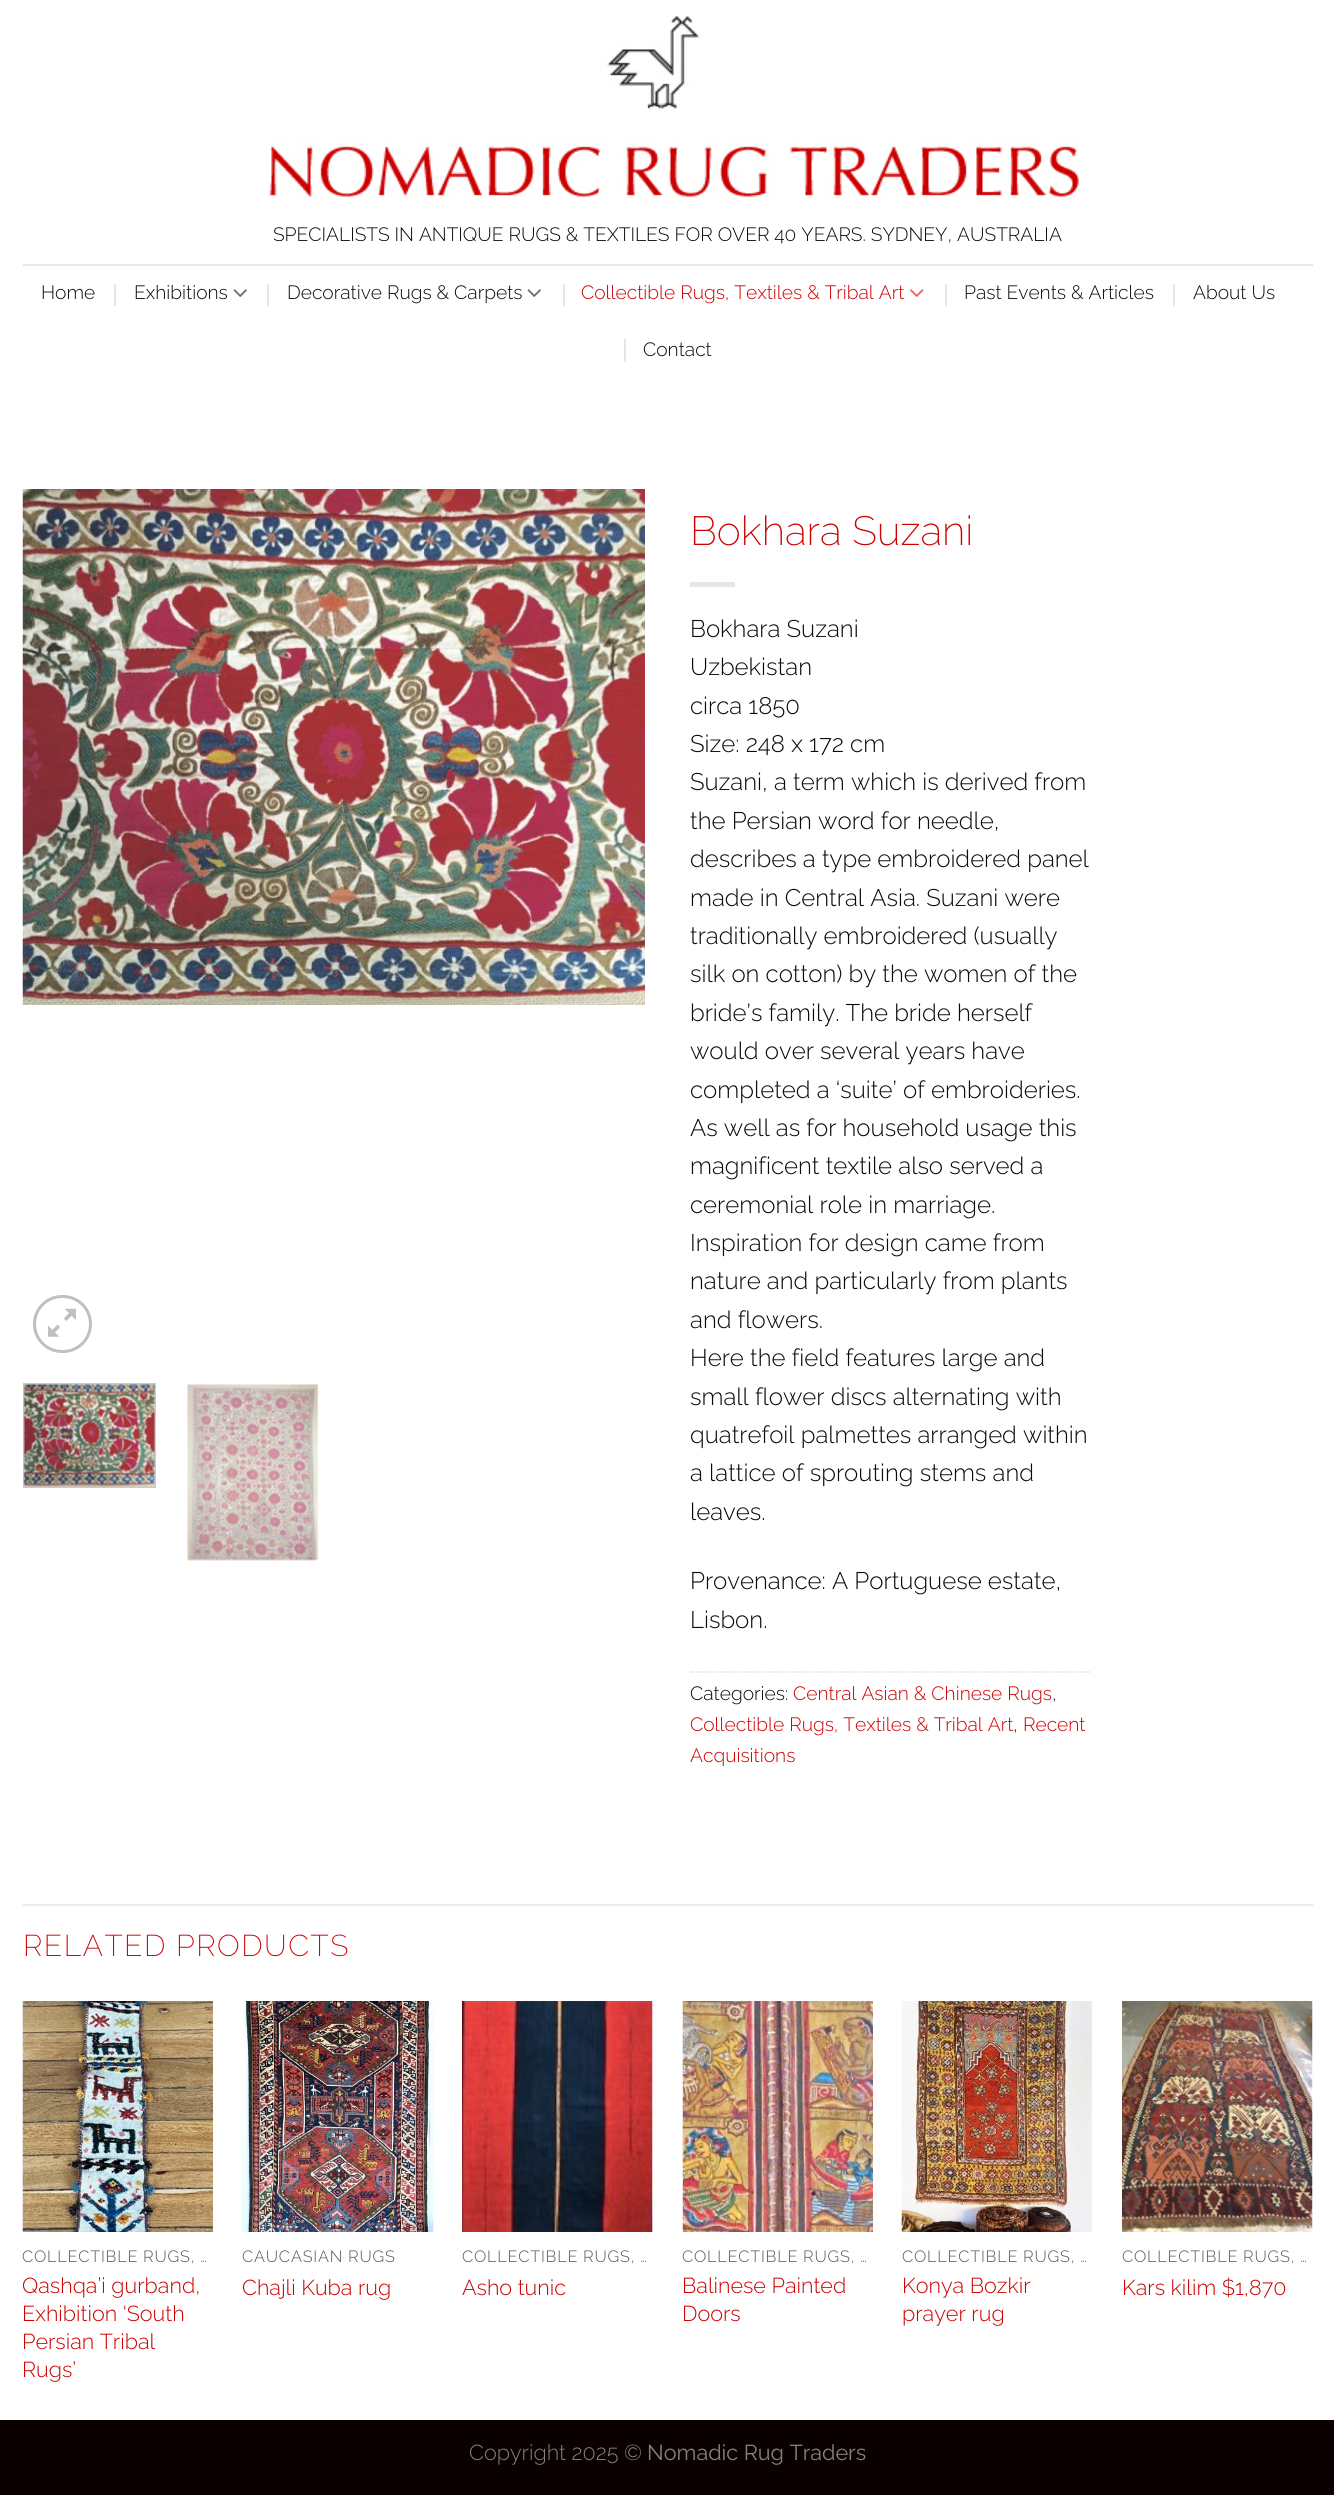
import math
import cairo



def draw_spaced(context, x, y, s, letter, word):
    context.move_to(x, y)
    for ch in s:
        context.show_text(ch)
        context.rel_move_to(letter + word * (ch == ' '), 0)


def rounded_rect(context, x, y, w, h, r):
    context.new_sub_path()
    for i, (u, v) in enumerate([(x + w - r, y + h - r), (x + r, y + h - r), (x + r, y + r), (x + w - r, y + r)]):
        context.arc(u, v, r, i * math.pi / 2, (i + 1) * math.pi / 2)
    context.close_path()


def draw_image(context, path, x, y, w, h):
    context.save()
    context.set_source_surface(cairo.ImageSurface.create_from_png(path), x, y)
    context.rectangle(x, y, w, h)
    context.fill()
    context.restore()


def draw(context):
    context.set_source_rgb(10 / 255, 0, 0)
    context.paint()
    context.set_source_rgb(1, 1, 1)
    context.rectangle(0, 0, 1334, 2420)
    context.fill()
    draw_image(context, "images/1.png", 269, 16, 810, 182)
    context.set_source_rgb(231 / 255, 231 / 255, 231 / 255)
    context.rectangle(23, 264, 1290, 2)
    context.fill()
    context.set_source_rgb(230 / 255, 230 / 255, 230 / 255)
    context.rectangle(114, 284, 2, 22)
    context.fill()
    draw_image(context, "images/2.png", 233, 289, 14, 8)
    context.rectangle(267, 284, 2, 22)
    context.fill()
    draw_image(context, "images/2.png", 527, 289, 14, 8)
    context.rectangle(563, 284, 2, 22)
    context.fill()
    draw_image(context, "images/3.png", 910, 289, 14, 8)
    context.rectangle(945, 284, 2, 22)
    context.fill()
    context.rectangle(1173, 284, 2, 22)
    context.fill()
    context.rectangle(624, 339, 2, 23)
    context.fill()
    draw_image(context, "images/4.png", 22, 489, 623, 516)
    rounded_rect(context, 34.5, 1296.5, 56, 55, 27.5)
    context.set_source_rgb(192 / 255, 192 / 255, 192 / 255)
    context.set_line_width(3)
    context.stroke()
    draw_image(context, "images/5.png", 48, 1308, 28, 29)
    context.rectangle(24, 1384, 131, 103)
    context.set_source_rgb(204 / 255, 204 / 255, 204 / 255)
    context.set_line_width(2)
    context.stroke()
    draw_image(context, "images/6.png", 23, 1384, 132, 103)
    draw_image(context, "images/7.png", 187, 1384, 132, 177)
    context.set_source_rgb(230 / 255, 230 / 255, 230 / 255)
    context.rectangle(690, 582, 45, 5)
    context.fill()
    context.new_path()
    context.move_to(690, 1672)
    context.line_to(1090.5, 1672)
    context.set_source_rgb(221 / 255, 221 / 255, 221 / 255)
    context.set_line_width(1.5)
    context.set_dash([1.5, 1.5])
    context.stroke()
    context.set_source_rgb(236 / 255, 236 / 255, 236 / 255)
    context.rectangle(23, 1904, 1290, 2)
    context.fill()
    draw_image(context, "images/8.png", 22, 2001, 191, 231)
    draw_image(context, "images/9.png", 241, 2001, 193, 231)
    draw_image(context, "images/10.png", 462, 2001, 191, 231)
    draw_image(context, "images/11.png", 682, 2001, 191, 231)
    draw_image(context, "images/12.png", 901, 2001, 191, 231)
    draw_image(context, "images/13.png", 1122, 2001, 191, 231)
    context.select_font_face("Raleway Light")
    context.set_font_size(19.2)
    context.set_source_rgb(10 / 255, 10 / 255, 10 / 255)
    context.move_to(273, 241)
    context.show_text("SPECIALISTS IN ANTIQUE RUGS & TEXTILES FOR OVER 40 YEARS. SYDNEY, AUSTRALIA")
    context.move_to(41, 299)
    context.show_text("Home")
    context.move_to(134, 299)
    context.show_text("Exhibitions")
    context.move_to(287, 299)
    context.show_text("Decorative Rugs & Carpets")
    context.set_source_rgb(204 / 255, 0, 0)
    context.move_to(581, 299)
    context.show_text("Collectible Rugs, Textiles & Tribal Art")
    context.set_source_rgb(10 / 255, 10 / 255, 10 / 255)
    context.move_to(964, 299)
    context.show_text("Past Events & Articles")
    context.move_to(1193, 299)
    context.show_text("About Us")
    context.move_to(643, 356)
    context.show_text("Contact")
    context.select_font_face("Raleway ExtraLight")
    context.set_font_size(40.75)
    context.set_source_rgb(204 / 255, 0, 0)
    context.move_to(690, 545)
    context.show_text("Bokhara Suzani")
    context.select_font_face("Raleway Light")
    context.set_font_size(24)
    context.set_source_rgb(10 / 255, 10 / 255, 10 / 255)
    context.move_to(690, 637)
    context.show_text("Bokhara Suzani")
    context.move_to(690, 675)
    context.show_text("Uzbekistan")
    context.move_to(690, 714)
    context.show_text("circa 1850")
    context.move_to(690, 752)
    context.show_text("Size: 248 x 172 cm")
    context.move_to(690, 790)
    context.show_text("Suzani, a term which is derived from")
    context.move_to(690, 829)
    context.show_text("the Persian word for needle,")
    context.move_to(690, 867)
    context.show_text("describes a type embroidered panel")
    context.move_to(690, 906)
    context.show_text("made in Central Asia. Suzani were")
    context.move_to(690, 944)
    context.show_text("traditionally embroidered (usually")
    context.move_to(690, 982)
    context.show_text("silk on cotton) by the women of the")
    context.move_to(690, 1021)
    context.show_text("bride’s family. The bride herself")
    context.move_to(690, 1059)
    context.show_text("would over several years have")
    context.move_to(690, 1098)
    context.show_text("completed a ‘suite’ of embroideries.")
    context.move_to(690, 1136)
    context.show_text("As well as for household usage this")
    context.move_to(690, 1174)
    context.show_text("magnificent textile also served a")
    context.move_to(690, 1213)
    context.show_text("ceremonial role in marriage.")
    context.move_to(690, 1251)
    context.show_text("Inspiration for design came from")
    context.move_to(690, 1289)
    context.show_text("nature and particularly from plants")
    context.move_to(690, 1328)
    context.show_text("and flowers.")
    context.move_to(690, 1366)
    context.show_text("Here the field features large and")
    context.move_to(690, 1405)
    context.show_text("small flower discs alternating with")
    context.move_to(690, 1443)
    context.show_text("quatrefoil palmettes arranged within")
    context.move_to(690, 1481)
    context.show_text("a lattice of sprouting stems and")
    context.move_to(690, 1520)
    context.show_text("leaves.")
    context.move_to(690, 1589)
    context.show_text("Provenance: A Portuguese estate,")
    context.move_to(690, 1628)
    context.show_text("Lisbon.")
    context.set_font_size(19.2)
    context.move_to(690, 1700)
    context.show_text("Categories:")
    context.set_source_rgb(204 / 255, 0, 0)
    context.move_to(793, 1700)
    context.show_text("Central Asian & Chinese Rugs")
    context.set_source_rgb(10 / 255, 10 / 255, 10 / 255)
    context.move_to(1052, 1700)
    context.show_text(",")
    context.set_source_rgb(204 / 255, 0, 0)
    context.move_to(690, 1731)
    context.show_text("Collectible Rugs, Textiles & Tribal Art")
    context.set_source_rgb(10 / 255, 10 / 255, 10 / 255)
    context.move_to(1013, 1731)
    context.show_text(",")
    context.set_source_rgb(204 / 255, 0, 0)
    context.move_to(1023, 1731)
    context.show_text("Recent")
    context.move_to(690, 1762)
    context.show_text("Acquisitions")
    context.select_font_face("Raleway ExtraLight")
    context.set_font_size(30)
    draw_spaced(context, 23, 1956, "RELATED PRODUCTS", 1.5, 0)
    context.select_font_face("Raleway Light")
    context.set_font_size(16.25)
    context.set_source_rgb(84 / 255, 84 / 255, 84 / 255)
    draw_spaced(context, 22, 2262, "COLLECTIBLE RUGS, …", 0.8, 0)
    context.set_font_size(21.6)
    context.set_source_rgb(204 / 255, 0, 0)
    context.move_to(22, 2293)
    context.show_text("Qashqa’i gurband,")
    context.move_to(22, 2321)
    context.show_text("Exhibition ‘South")
    context.move_to(22, 2349)
    context.show_text("Persian Tribal")
    context.move_to(22, 2377)
    context.show_text("Rugs’")
    context.set_font_size(16.25)
    context.set_source_rgb(84 / 255, 84 / 255, 84 / 255)
    draw_spaced(context, 242, 2262, "CAUCASIAN RUGS", 0.8, 0)
    context.set_font_size(21.6)
    context.set_source_rgb(204 / 255, 0, 0)
    context.move_to(242, 2295)
    context.show_text("Chajli Kuba rug")
    context.set_font_size(16.25)
    context.set_source_rgb(84 / 255, 84 / 255, 84 / 255)
    draw_spaced(context, 462, 2262, "COLLECTIBLE RUGS, …", 0.8, 0)
    context.set_font_size(21.6)
    context.set_source_rgb(204 / 255, 0, 0)
    context.move_to(462, 2295)
    context.show_text("Asho tunic")
    context.set_font_size(16.25)
    context.set_source_rgb(84 / 255, 84 / 255, 84 / 255)
    draw_spaced(context, 682, 2262, "COLLECTIBLE RUGS, …", 0.8, 0)
    context.set_font_size(21.6)
    context.set_source_rgb(204 / 255, 0, 0)
    context.move_to(682, 2293)
    context.show_text("Balinese Painted")
    context.move_to(682, 2321)
    context.show_text("Doors")
    context.set_font_size(16.25)
    context.set_source_rgb(84 / 255, 84 / 255, 84 / 255)
    draw_spaced(context, 902, 2262, "COLLECTIBLE RUGS, …", 0.8, 0)
    context.set_font_size(21.6)
    context.set_source_rgb(204 / 255, 0, 0)
    context.move_to(902, 2293)
    context.show_text("Konya Bozkir")
    context.move_to(902, 2321)
    context.show_text("prayer rug")
    context.set_font_size(16.25)
    context.set_source_rgb(84 / 255, 84 / 255, 84 / 255)
    draw_spaced(context, 1122, 2262, "COLLECTIBLE RUGS, …", 0.8, 0)
    context.set_font_size(21.6)
    context.set_source_rgb(204 / 255, 0, 0)
    context.move_to(1122, 2295)
    context.show_text("Kars kilim $1,870")
    context.set_source_rgb(133 / 255, 128 / 255, 128 / 255)
    context.move_to(469, 2460)
    context.show_text("Copyright 2025 ©")
    context.select_font_face("Raleway")
    context.move_to(647, 2460)
    context.show_text("Nomadic Rug Traders")


surface = cairo.ImageSurface(cairo.Format.RGB24, 1334, 2495)
context = cairo.Context(surface)
options = cairo.FontOptions()
options.set_hint_metrics(cairo.HintMetrics.OFF)
options.set_hint_style(cairo.HintStyle.NONE)
context.set_font_options(options)
context.set_miter_limit(4)
draw(context)
surface.write_to_png("out.png")
